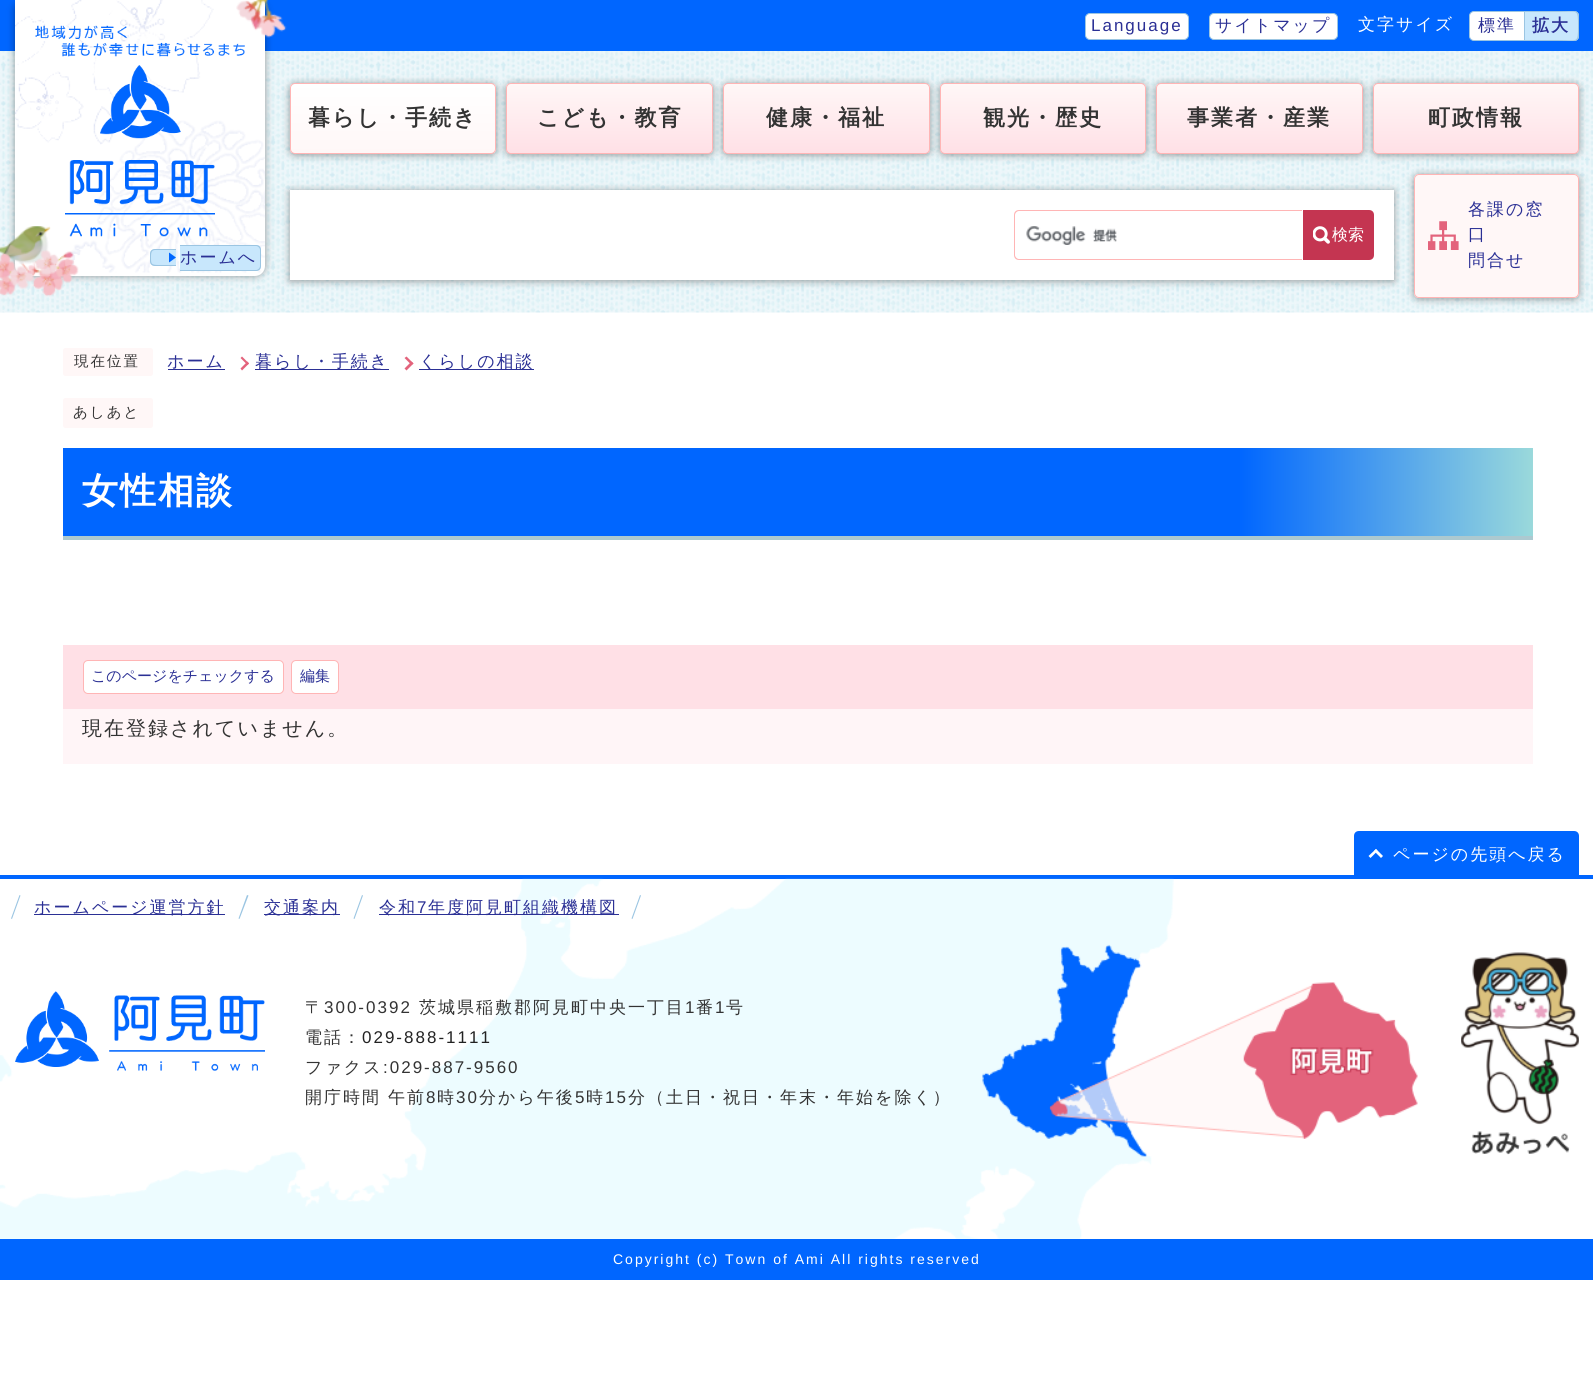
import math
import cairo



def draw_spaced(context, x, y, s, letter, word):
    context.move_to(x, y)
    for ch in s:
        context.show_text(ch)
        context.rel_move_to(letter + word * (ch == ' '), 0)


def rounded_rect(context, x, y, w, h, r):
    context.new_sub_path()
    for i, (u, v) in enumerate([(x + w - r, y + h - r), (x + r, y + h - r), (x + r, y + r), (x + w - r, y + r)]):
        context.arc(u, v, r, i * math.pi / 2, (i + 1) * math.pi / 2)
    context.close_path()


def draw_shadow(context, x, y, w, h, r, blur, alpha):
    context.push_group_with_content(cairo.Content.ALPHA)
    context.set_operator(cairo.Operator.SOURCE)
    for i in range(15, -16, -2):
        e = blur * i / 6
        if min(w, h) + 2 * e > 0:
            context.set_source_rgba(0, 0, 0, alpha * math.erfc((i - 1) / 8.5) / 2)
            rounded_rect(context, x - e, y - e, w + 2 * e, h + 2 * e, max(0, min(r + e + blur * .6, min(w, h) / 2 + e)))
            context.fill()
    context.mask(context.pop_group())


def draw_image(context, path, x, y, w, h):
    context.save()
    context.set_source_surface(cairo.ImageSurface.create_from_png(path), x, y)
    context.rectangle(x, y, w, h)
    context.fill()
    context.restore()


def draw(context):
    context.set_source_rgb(1, 1, 1)
    context.paint()
    draw_image(context, "images/1.png", 0, 51, 1593, 262)
    context.set_source_rgb(0, 102 / 255, 1)
    context.rectangle(0, 0, 1593, 51)
    context.fill()
    context.set_source_rgb(1, 1, 1)
    rounded_rect(context, 1085.5, 13.5, 103, 26, 4.5)
    context.fill_preserve()
    context.set_source_rgb(155 / 255, 197 / 255, 226 / 255)
    context.set_line_width(1)
    context.stroke()
    context.set_source_rgb(1, 1, 1)
    rounded_rect(context, 1209.5, 13.5, 128, 26, 4.5)
    context.fill_preserve()
    context.set_source_rgb(155 / 255, 197 / 255, 226 / 255)
    context.stroke()
    context.set_source_rgb(1, 1, 1)
    context.new_path()
    context.move_to(1474, 11.5)
    context.line_to(1524.5, 11.5)
    context.line_to(1524.5, 40.5)
    context.line_to(1474, 40.5)
    context.curve_to(1471.5, 40.5, 1469.5, 38.5, 1469.5, 36)
    context.line_to(1469.5, 16)
    context.curve_to(1469.5, 13.5, 1471.5, 11.5, 1474, 11.5)
    context.close_path()
    context.fill_preserve()
    context.set_source_rgb(155 / 255, 197 / 255, 226 / 255)
    context.stroke()
    context.set_source_rgb(200 / 255, 231 / 255, 252 / 255)
    context.new_path()
    context.move_to(1525, 11)
    context.line_to(1574, 11)
    context.curve_to(1577, 11, 1579, 13, 1579, 16)
    context.line_to(1579, 36)
    context.curve_to(1579, 39, 1577, 41, 1574, 41)
    context.line_to(1525, 41)
    context.close_path()
    context.fill()
    context.set_source_rgb(155 / 255, 197 / 255, 226 / 255)
    context.set_fill_rule(cairo.FillRule.EVEN_ODD)
    context.new_path()
    context.move_to(1525, 11)
    context.line_to(1574, 11)
    context.curve_to(1577, 11, 1579, 13, 1579, 16)
    context.line_to(1579, 36)
    context.curve_to(1579, 39, 1577, 41, 1574, 41)
    context.line_to(1525, 41)
    context.close_path()
    context.move_to(1525, 12)
    context.line_to(1558, 12)
    context.curve_to(1578, 12, 1578, 8, 1578, 26)
    context.curve_to(1578, 44, 1578, 40, 1558, 40)
    context.line_to(1525, 40)
    context.close_path()
    context.fill()
    context.set_source_rgb(0, 0, 0)
    draw_shadow(context, 15, 0, 250, 276, 10, 4, 0.4)
    context.set_source_rgb(1, 1, 1)
    context.new_path()
    context.move_to(15, 0)
    context.line_to(265, 0)
    context.line_to(265, 266)
    context.curve_to(265, 271.5, 260.5, 276, 255, 276)
    context.line_to(25, 276)
    context.curve_to(19.5, 276, 15, 271.5, 15, 266)
    context.close_path()
    context.fill()
    draw_image(context, "images/2.png", 15, 0, 250, 273)
    draw_image(context, "images/3.png", 35, 25, 210, 32)
    draw_image(context, "images/4.png", 236, 0, 51, 38)
    draw_image(context, "images/5.png", 100, 65, 81, 74)
    draw_image(context, "images/6.png", 65, 160, 150, 77)
    draw_image(context, "images/7.png", 0, 226, 79, 71)
    context.set_source_rgb(200 / 255, 231 / 255, 252 / 255)
    context.new_path()
    context.move_to(155, 249)
    context.line_to(176, 249)
    context.line_to(176, 266)
    context.line_to(155, 266)
    context.curve_to(152, 266, 150, 264, 150, 261)
    context.line_to(150, 254)
    context.curve_to(150, 251, 152, 249, 155, 249)
    context.close_path()
    context.fill()
    context.set_source_rgb(155 / 255, 197 / 255, 226 / 255)
    context.new_path()
    context.move_to(155, 249)
    context.line_to(176, 249)
    context.line_to(176, 266)
    context.line_to(155, 266)
    context.curve_to(152, 266, 150, 264, 150, 261)
    context.line_to(150, 254)
    context.curve_to(150, 251, 152, 249, 155, 249)
    context.close_path()
    context.move_to(155, 250)
    context.line_to(176, 250)
    context.line_to(176, 265)
    context.line_to(158.5, 265)
    context.curve_to(150.5, 265, 151, 263.5, 151, 256)
    context.curve_to(151, 253.5, 151.5, 250, 155, 250)
    context.close_path()
    context.fill()
    context.set_source_rgb(200 / 255, 231 / 255, 252 / 255)
    context.new_path()
    context.move_to(180, 245)
    context.line_to(256, 245)
    context.curve_to(259, 245, 261, 247, 261, 250)
    context.line_to(261, 266)
    context.curve_to(261, 269, 259, 271, 256, 271)
    context.line_to(180, 271)
    context.close_path()
    context.fill()
    context.set_source_rgb(155 / 255, 197 / 255, 226 / 255)
    context.new_path()
    context.move_to(180, 245)
    context.line_to(256, 245)
    context.curve_to(259, 245, 261, 247, 261, 250)
    context.line_to(261, 266)
    context.curve_to(261, 269, 259, 271, 256, 271)
    context.line_to(180, 271)
    context.close_path()
    context.move_to(180, 246)
    context.line_to(256, 246)
    context.curve_to(258, 246, 260, 248, 260, 250)
    context.line_to(260, 266)
    context.curve_to(260, 268, 258, 270, 256, 270)
    context.line_to(180, 270)
    context.close_path()
    context.fill()
    context.set_source_rgb(0, 102 / 255, 1)
    context.set_fill_rule(cairo.FillRule.WINDING)
    context.new_path()
    context.move_to(169, 262.5)
    context.line_to(169, 252.5)
    context.line_to(176, 257.5)
    context.close_path()
    context.fill()
    context.set_source_rgb(0, 0, 0)
    draw_shadow(context, 290, 84, 206, 71, 5, 4, 0.4)
    context.save()
    rounded_rect(context, 290, 83, 206, 71, 5)
    context.clip()
    gradient = cairo.LinearGradient(393, 84, 393, 153)
    gradient.add_color_stop_rgba(0, 1, 1, 1, 1)
    gradient.add_color_stop_rgba(1, 1, 247 / 255, 247 / 255, 1)
    context.set_source(gradient)
    context.rectangle(290, 84, 206, 69)
    context.fill()
    context.restore()
    rounded_rect(context, 290.5, 83.5, 205, 70, 4.5)
    context.set_source_rgb(1, 181 / 255, 181 / 255)
    context.stroke()
    context.set_source_rgb(0, 0, 0)
    draw_shadow(context, 506, 84, 207, 71, 5, 4, 0.4)
    context.save()
    rounded_rect(context, 506, 83, 207, 71, 5)
    context.clip()
    gradient = cairo.LinearGradient(609, 84, 609, 153)
    gradient.add_color_stop_rgba(0, 1, 247 / 255, 247 / 255, 1)
    gradient.add_color_stop_rgba(1, 1, 224 / 255, 230 / 255, 1)
    context.set_source(gradient)
    context.rectangle(506, 84, 207, 69)
    context.fill()
    context.restore()
    rounded_rect(context, 506.5, 83.5, 206, 70, 4.5)
    context.set_source_rgb(1, 181 / 255, 181 / 255)
    context.stroke()
    context.set_source_rgb(0, 0, 0)
    draw_shadow(context, 723, 84, 207, 71, 5, 4, 0.4)
    context.save()
    rounded_rect(context, 723, 83, 207, 71, 5)
    context.clip()
    gradient = cairo.LinearGradient(826, 84, 826, 153)
    gradient.add_color_stop_rgba(0, 1, 247 / 255, 247 / 255, 1)
    gradient.add_color_stop_rgba(1, 1, 224 / 255, 230 / 255, 1)
    context.set_source(gradient)
    context.rectangle(723, 84, 207, 69)
    context.fill()
    context.restore()
    rounded_rect(context, 723.5, 83.5, 206, 70, 4.5)
    context.set_source_rgb(1, 181 / 255, 181 / 255)
    context.stroke()
    context.set_source_rgb(0, 0, 0)
    draw_shadow(context, 940, 84, 206, 71, 5, 4, 0.4)
    context.save()
    rounded_rect(context, 940, 83, 206, 71, 5)
    context.clip()
    gradient = cairo.LinearGradient(1043, 84, 1043, 153)
    gradient.add_color_stop_rgba(0, 1, 247 / 255, 247 / 255, 1)
    gradient.add_color_stop_rgba(1, 1, 224 / 255, 230 / 255, 1)
    context.set_source(gradient)
    context.rectangle(940, 84, 206, 69)
    context.fill()
    context.restore()
    rounded_rect(context, 940.5, 83.5, 205, 70, 4.5)
    context.set_source_rgb(1, 181 / 255, 181 / 255)
    context.stroke()
    context.set_source_rgb(0, 0, 0)
    draw_shadow(context, 1156, 84, 207, 71, 5, 4, 0.4)
    context.save()
    rounded_rect(context, 1156, 83, 207, 71, 5)
    context.clip()
    gradient = cairo.LinearGradient(1259, 84, 1259, 153)
    gradient.add_color_stop_rgba(0, 1, 247 / 255, 247 / 255, 1)
    gradient.add_color_stop_rgba(1, 1, 224 / 255, 230 / 255, 1)
    context.set_source(gradient)
    context.rectangle(1156, 84, 207, 69)
    context.fill()
    context.restore()
    rounded_rect(context, 1156.5, 83.5, 206, 70, 4.5)
    context.set_source_rgb(1, 181 / 255, 181 / 255)
    context.stroke()
    context.set_source_rgb(0, 0, 0)
    draw_shadow(context, 1373, 84, 206, 71, 5, 4, 0.4)
    context.save()
    rounded_rect(context, 1373, 83, 206, 71, 5)
    context.clip()
    gradient = cairo.LinearGradient(1476, 84, 1476, 153)
    gradient.add_color_stop_rgba(0, 1, 247 / 255, 247 / 255, 1)
    gradient.add_color_stop_rgba(1, 1, 224 / 255, 230 / 255, 1)
    context.set_source(gradient)
    context.rectangle(1373, 84, 206, 69)
    context.fill()
    context.restore()
    rounded_rect(context, 1373.5, 83.5, 205, 70, 4.5)
    context.set_source_rgb(1, 181 / 255, 181 / 255)
    context.stroke()
    context.set_source_rgb(0, 0, 0)
    draw_shadow(context, 290, 191, 1104, 90, 0, 4, 0.4)
    context.set_source_rgb(1, 1, 1)
    context.rectangle(290, 190, 1104, 90)
    context.fill()
    draw_image(context, "images/8.png", 1026, 226, 91, 19)
    context.set_source_rgb(1, 181 / 255, 181 / 255)
    context.set_fill_rule(cairo.FillRule.EVEN_ODD)
    context.new_path()
    context.move_to(1019, 210)
    context.line_to(1302, 210)
    context.line_to(1302, 260)
    context.line_to(1019, 260)
    context.curve_to(1016, 260, 1014, 258, 1014, 255)
    context.line_to(1014, 215)
    context.curve_to(1014, 212, 1016, 210, 1019, 210)
    context.close_path()
    context.move_to(1019, 211)
    context.line_to(1302, 211)
    context.line_to(1302, 259)
    context.line_to(1019, 259)
    context.curve_to(1017, 259, 1015, 257, 1015, 255)
    context.line_to(1015, 215)
    context.curve_to(1015, 213, 1017, 211, 1019, 211)
    context.close_path()
    context.fill()
    context.set_source_rgb(196 / 255, 53 / 255, 81 / 255)
    context.new_path()
    context.move_to(1303, 210)
    context.line_to(1369, 210)
    context.curve_to(1372, 210, 1374, 212, 1374, 215)
    context.line_to(1374, 255)
    context.curve_to(1374, 258, 1372, 260, 1369, 260)
    context.line_to(1303, 260)
    context.close_path()
    context.fill()
    draw_image(context, "images/9.png", 1313, 226, 17, 18)
    context.set_source_rgb(0, 0, 0)
    draw_shadow(context, 1414, 175, 165, 124, 5, 4, 0.4)
    context.set_source_rgb(1, 247 / 255, 247 / 255)
    rounded_rect(context, 1414, 174, 165, 124, 5)
    context.fill()
    draw_image(context, "images/10.png", 1428, 221, 31, 29)
    rounded_rect(context, 1414.5, 174.5, 164, 123, 4.5)
    context.set_source_rgb(1, 181 / 255, 181 / 255)
    context.stroke()
    context.set_source_rgb(1, 247 / 255, 247 / 255)
    rounded_rect(context, 63, 348, 90, 28, 2.5)
    context.fill()
    context.set_source_rgb(43 / 255, 48 / 255, 149 / 255)
    context.rectangle(168, 369, 57, 1)
    context.fill()
    context.set_source_rgb(227 / 255, 99 / 255, 124 / 255)
    context.set_fill_rule(cairo.FillRule.WINDING)
    context.new_path()
    context.move_to(240.5, 358)
    context.line_to(242, 356.5)
    context.line_to(249, 363.5)
    context.line_to(247.5, 365)
    context.close_path()
    context.fill()
    context.new_path()
    context.move_to(240.5, 368.5)
    context.line_to(247.5, 361.5)
    context.line_to(249, 363.5)
    context.line_to(242, 370.5)
    context.close_path()
    context.fill()
    context.set_source_rgb(43 / 255, 48 / 255, 149 / 255)
    context.rectangle(255, 369, 134, 1)
    context.fill()
    context.set_source_rgb(227 / 255, 99 / 255, 124 / 255)
    context.new_path()
    context.move_to(404.5, 358)
    context.line_to(406.5, 356.5)
    context.line_to(413.5, 363.5)
    context.line_to(411.5, 365)
    context.close_path()
    context.fill()
    context.new_path()
    context.move_to(404.5, 368.5)
    context.line_to(411.5, 361.5)
    context.line_to(413.5, 363.5)
    context.line_to(406.5, 370.5)
    context.close_path()
    context.fill()
    context.set_source_rgb(43 / 255, 48 / 255, 149 / 255)
    context.rectangle(419, 369, 115, 1)
    context.fill()
    context.set_source_rgb(1, 247 / 255, 247 / 255)
    rounded_rect(context, 63, 398, 90, 30, 2.5)
    context.fill()
    gradient = cairo.LinearGradient(63, 492, 1533, 492)
    gradient.add_color_stop_rgba(0.8, 0, 102 / 255, 1, 1)
    gradient.add_color_stop_rgba(1, 154 / 255, 217 / 255, 219 / 255, 1)
    context.set_source(gradient)
    context.rectangle(63, 448, 1470, 88)
    context.fill()
    context.set_source_rgb(172 / 255, 201 / 255, 208 / 255)
    context.rectangle(63, 536, 1470, 4)
    context.fill()
    context.set_source_rgb(1, 224 / 255, 230 / 255)
    context.rectangle(63, 645, 1470, 64)
    context.fill()
    context.set_source_rgb(1, 1, 1)
    rounded_rect(context, 83.5, 660.5, 200, 33, 4.5)
    context.fill_preserve()
    context.set_source_rgb(1, 181 / 255, 181 / 255)
    context.stroke()
    context.set_source_rgb(1, 1, 1)
    rounded_rect(context, 291.5, 660.5, 47, 33, 4.5)
    context.fill_preserve()
    context.set_source_rgb(1, 181 / 255, 181 / 255)
    context.stroke()
    context.set_source_rgb(1, 245 / 255, 247 / 255)
    context.rectangle(63, 709, 1470, 55)
    context.fill()
    context.set_source_rgb(0, 102 / 255, 1)
    context.new_path()
    context.move_to(1359, 831)
    context.line_to(1574, 831)
    context.curve_to(1577, 831, 1579, 833, 1579, 836)
    context.line_to(1579, 875)
    context.line_to(1354, 875)
    context.line_to(1354, 836)
    context.curve_to(1354, 833, 1356, 831, 1359, 831)
    context.close_path()
    context.fill()
    context.set_source_rgb(1, 1, 1)
    context.new_path()
    context.move_to(1370.5, 858)
    context.line_to(1368.5, 856)
    context.line_to(1376, 849)
    context.line_to(1377.5, 851)
    context.close_path()
    context.fill()
    context.new_path()
    context.move_to(1381, 858)
    context.line_to(1374, 851)
    context.line_to(1376, 849)
    context.line_to(1383, 856)
    context.close_path()
    context.fill()
    context.set_source_rgb(0, 102 / 255, 1)
    context.rectangle(0, 875, 1593, 4)
    context.fill()
    draw_image(context, "images/11.png", 0, 878, 1418, 361)
    context.set_source_rgb(155 / 255, 197 / 255, 226 / 255)
    context.new_path()
    context.move_to(19.5, 895)
    context.line_to(20.5, 895.5)
    context.line_to(12, 919)
    context.line_to(11, 918.5)
    context.close_path()
    context.fill()
    context.set_source_rgb(43 / 255, 48 / 255, 149 / 255)
    context.rectangle(34, 914, 191, 1)
    context.fill()
    context.set_source_rgb(155 / 255, 197 / 255, 226 / 255)
    context.new_path()
    context.move_to(247, 895)
    context.line_to(248.5, 895.5)
    context.line_to(239.5, 919)
    context.line_to(238.5, 918.5)
    context.close_path()
    context.fill()
    context.set_source_rgb(43 / 255, 48 / 255, 149 / 255)
    context.rectangle(264, 914, 76, 1)
    context.fill()
    context.set_source_rgb(155 / 255, 197 / 255, 226 / 255)
    context.new_path()
    context.move_to(362, 895)
    context.line_to(363, 895.5)
    context.line_to(354.5, 919)
    context.line_to(353.5, 918.5)
    context.close_path()
    context.fill()
    context.set_source_rgb(43 / 255, 48 / 255, 149 / 255)
    context.rectangle(379, 914, 240, 1)
    context.fill()
    context.set_source_rgb(155 / 255, 197 / 255, 226 / 255)
    context.new_path()
    context.move_to(640, 895)
    context.line_to(641, 895.5)
    context.line_to(632.5, 919)
    context.line_to(631.5, 918.5)
    context.close_path()
    context.fill()
    draw_image(context, "images/12.png", 15, 991, 250, 80)
    draw_image(context, "images/13.png", 1461, 952, 118, 203)
    context.set_source_rgb(0, 102 / 255, 1)
    context.rectangle(0, 1239, 1593, 41)
    context.fill()
    context.select_font_face("Liberation Sans")
    context.set_font_size(17)
    context.set_source_rgb(43 / 255, 48 / 255, 149 / 255)
    draw_spaced(context, 1091, 31, "Language", 2, 0)
    context.select_font_face("WenQuanYi Zen Hei Medium")
    draw_spaced(context, 1215, 31, "サイトマップ", 2, 0)
    context.set_source_rgb(1, 1, 1)
    draw_spaced(context, 1358, 30, "文字サイズ", 2, 0)
    context.set_source_rgb(43 / 255, 48 / 255, 149 / 255)
    draw_spaced(context, 1478, 31, "標準", 2, 0)
    context.select_font_face("WenQuanYi Zen Hei", cairo.FontSlant.NORMAL, cairo.FontWeight.BOLD)
    draw_spaced(context, 1532, 31, "拡大", 2, 0)
    context.select_font_face("WenQuanYi Zen Hei Medium")
    draw_spaced(context, 180, 263, "ホームへ", 2, 0)
    context.select_font_face("WenQuanYi Zen Hei", cairo.FontSlant.NORMAL, cairo.FontWeight.BOLD)
    context.set_font_size(22)
    context.set_source_rgb(51 / 255, 51 / 255, 51 / 255)
    draw_spaced(context, 308, 125, "暮らし・手続き", 2, 0)
    draw_spaced(context, 537, 125, "こども・教育", 2, 0)
    draw_spaced(context, 766, 125, "健康・福祉", 2, 0)
    draw_spaced(context, 983, 125, "観光・歴史", 2, 0)
    draw_spaced(context, 1187, 125, "事業者・産業", 2, 0)
    draw_spaced(context, 1428, 125, "町政情報", 2, 0)
    context.select_font_face("WenQuanYi Zen Hei Medium")
    context.set_font_size(16)
    context.set_source_rgb(1, 1, 1)
    context.move_to(1332, 240)
    context.show_text("検索")
    context.set_font_size(17)
    context.set_source_rgb(43 / 255, 48 / 255, 149 / 255)
    draw_spaced(context, 1468, 215, "各課の窓", 2, 0)
    draw_spaced(context, 1468, 240, "口", 2, 0)
    draw_spaced(context, 1468, 266, "問合せ", 2, 0)
    context.set_font_size(14.5)
    context.set_source_rgb(51 / 255, 51 / 255, 51 / 255)
    draw_spaced(context, 74, 366, "現在位置", 2, 0)
    context.set_font_size(17)
    context.set_source_rgb(43 / 255, 48 / 255, 149 / 255)
    draw_spaced(context, 167, 367, "ホーム", 2, 0)
    draw_spaced(context, 255, 367, "暮らし・手続き", 2, 0)
    draw_spaced(context, 419, 367, "くらしの相談", 2, 0)
    context.set_font_size(14.5)
    context.set_source_rgb(51 / 255, 51 / 255, 51 / 255)
    draw_spaced(context, 73, 417, "あしあと", 2, 0)
    context.select_font_face("WenQuanYi Zen Hei", cairo.FontSlant.NORMAL, cairo.FontWeight.BOLD)
    context.set_font_size(36)
    context.set_source_rgb(1, 1, 1)
    draw_spaced(context, 82, 503, "女性相談", 2, 0)
    context.select_font_face("WenQuanYi Zen Hei Medium")
    context.set_font_size(15)
    context.set_source_rgb(43 / 255, 48 / 255, 149 / 255)
    context.move_to(91, 681)
    context.show_text("このページをチェックする")
    context.move_to(300, 681)
    context.show_text("編集")
    context.set_font_size(20)
    context.set_source_rgb(51 / 255, 51 / 255, 51 / 255)
    draw_spaced(context, 82, 735, "現在登録されていません。", 2, 0)
    context.set_font_size(17)
    context.set_source_rgb(1, 1, 1)
    draw_spaced(context, 1393, 860, "ページの先頭へ戻る", 2, 0)
    context.set_source_rgb(43 / 255, 48 / 255, 149 / 255)
    draw_spaced(context, 34, 913, "ホームページ運営方針", 2, 0)
    draw_spaced(context, 264, 913, "交通案内", 2, 0)
    draw_spaced(context, 379, 913, "令和", 2, 0)
    context.select_font_face("Liberation Sans")
    draw_spaced(context, 417, 913, "7", 2, 0)
    context.select_font_face("WenQuanYi Zen Hei Medium")
    draw_spaced(context, 428, 913, "年度阿見町組織機構図", 2, 0)
    context.set_source_rgb(51 / 255, 51 / 255, 51 / 255)
    draw_spaced(context, 305, 1013, "〒", 2, 0)
    context.select_font_face("Liberation Sans")
    draw_spaced(context, 324, 1013, "300-0392", 2, 0)
    context.select_font_face("WenQuanYi Zen Hei Medium")
    draw_spaced(context, 419, 1013, "茨城県稲敷郡阿見町中央一丁目", 2, 0)
    context.select_font_face("Liberation Sans")
    draw_spaced(context, 685, 1013, "1", 2, 0)
    context.select_font_face("WenQuanYi Zen Hei Medium")
    draw_spaced(context, 696, 1013, "番", 2, 0)
    context.select_font_face("Liberation Sans")
    draw_spaced(context, 715, 1013, "1", 2, 0)
    context.select_font_face("WenQuanYi Zen Hei Medium")
    draw_spaced(context, 726, 1013, "号", 2, 0)
    draw_spaced(context, 305, 1043, "電話：", 2, 0)
    context.select_font_face("Liberation Sans")
    context.set_source_rgb(34 / 255, 34 / 255, 34 / 255)
    draw_spaced(context, 362, 1043, "029-888-1111", 2, 0)
    context.select_font_face("WenQuanYi Zen Hei Medium")
    context.set_source_rgb(51 / 255, 51 / 255, 51 / 255)
    draw_spaced(context, 305, 1073, "ファクス", 2, 0)
    context.select_font_face("Liberation Sans")
    draw_spaced(context, 383, 1073, ":029-887-9560", 2, 0)
    context.select_font_face("WenQuanYi Zen Hei Medium")
    draw_spaced(context, 305, 1103, "開庁時間 午前", 2, 0)
    context.select_font_face("Liberation Sans")
    draw_spaced(context, 426, 1103, "8", 2, 0)
    context.select_font_face("WenQuanYi Zen Hei Medium")
    draw_spaced(context, 437, 1103, "時", 2, 0)
    context.select_font_face("Liberation Sans")
    draw_spaced(context, 456, 1103, "30", 2, 0)
    context.select_font_face("WenQuanYi Zen Hei Medium")
    draw_spaced(context, 479, 1103, "分から午後", 2, 0)
    context.select_font_face("Liberation Sans")
    draw_spaced(context, 575, 1103, "5", 2, 0)
    context.select_font_face("WenQuanYi Zen Hei Medium")
    draw_spaced(context, 586, 1103, "時", 2, 0)
    context.select_font_face("Liberation Sans")
    draw_spaced(context, 605, 1103, "15", 2, 0)
    context.select_font_face("WenQuanYi Zen Hei Medium")
    draw_spaced(context, 628, 1103, "分（土日・祝日・年末・年始を除く）", 2, 0)
    context.select_font_face("Liberation Sans")
    context.set_font_size(14)
    context.set_source_rgb(1, 1, 1)
    draw_spaced(context, 613, 1264, "Copyright (c) Town of Ami All rights reserved", 2, 0)


surface = cairo.ImageSurface(cairo.Format.RGB24, 1593, 1385)
context = cairo.Context(surface)
options = cairo.FontOptions()
options.set_hint_metrics(cairo.HintMetrics.OFF)
options.set_hint_style(cairo.HintStyle.NONE)
context.set_font_options(options)
context.set_miter_limit(4)
draw(context)
surface.write_to_png("out.png")
